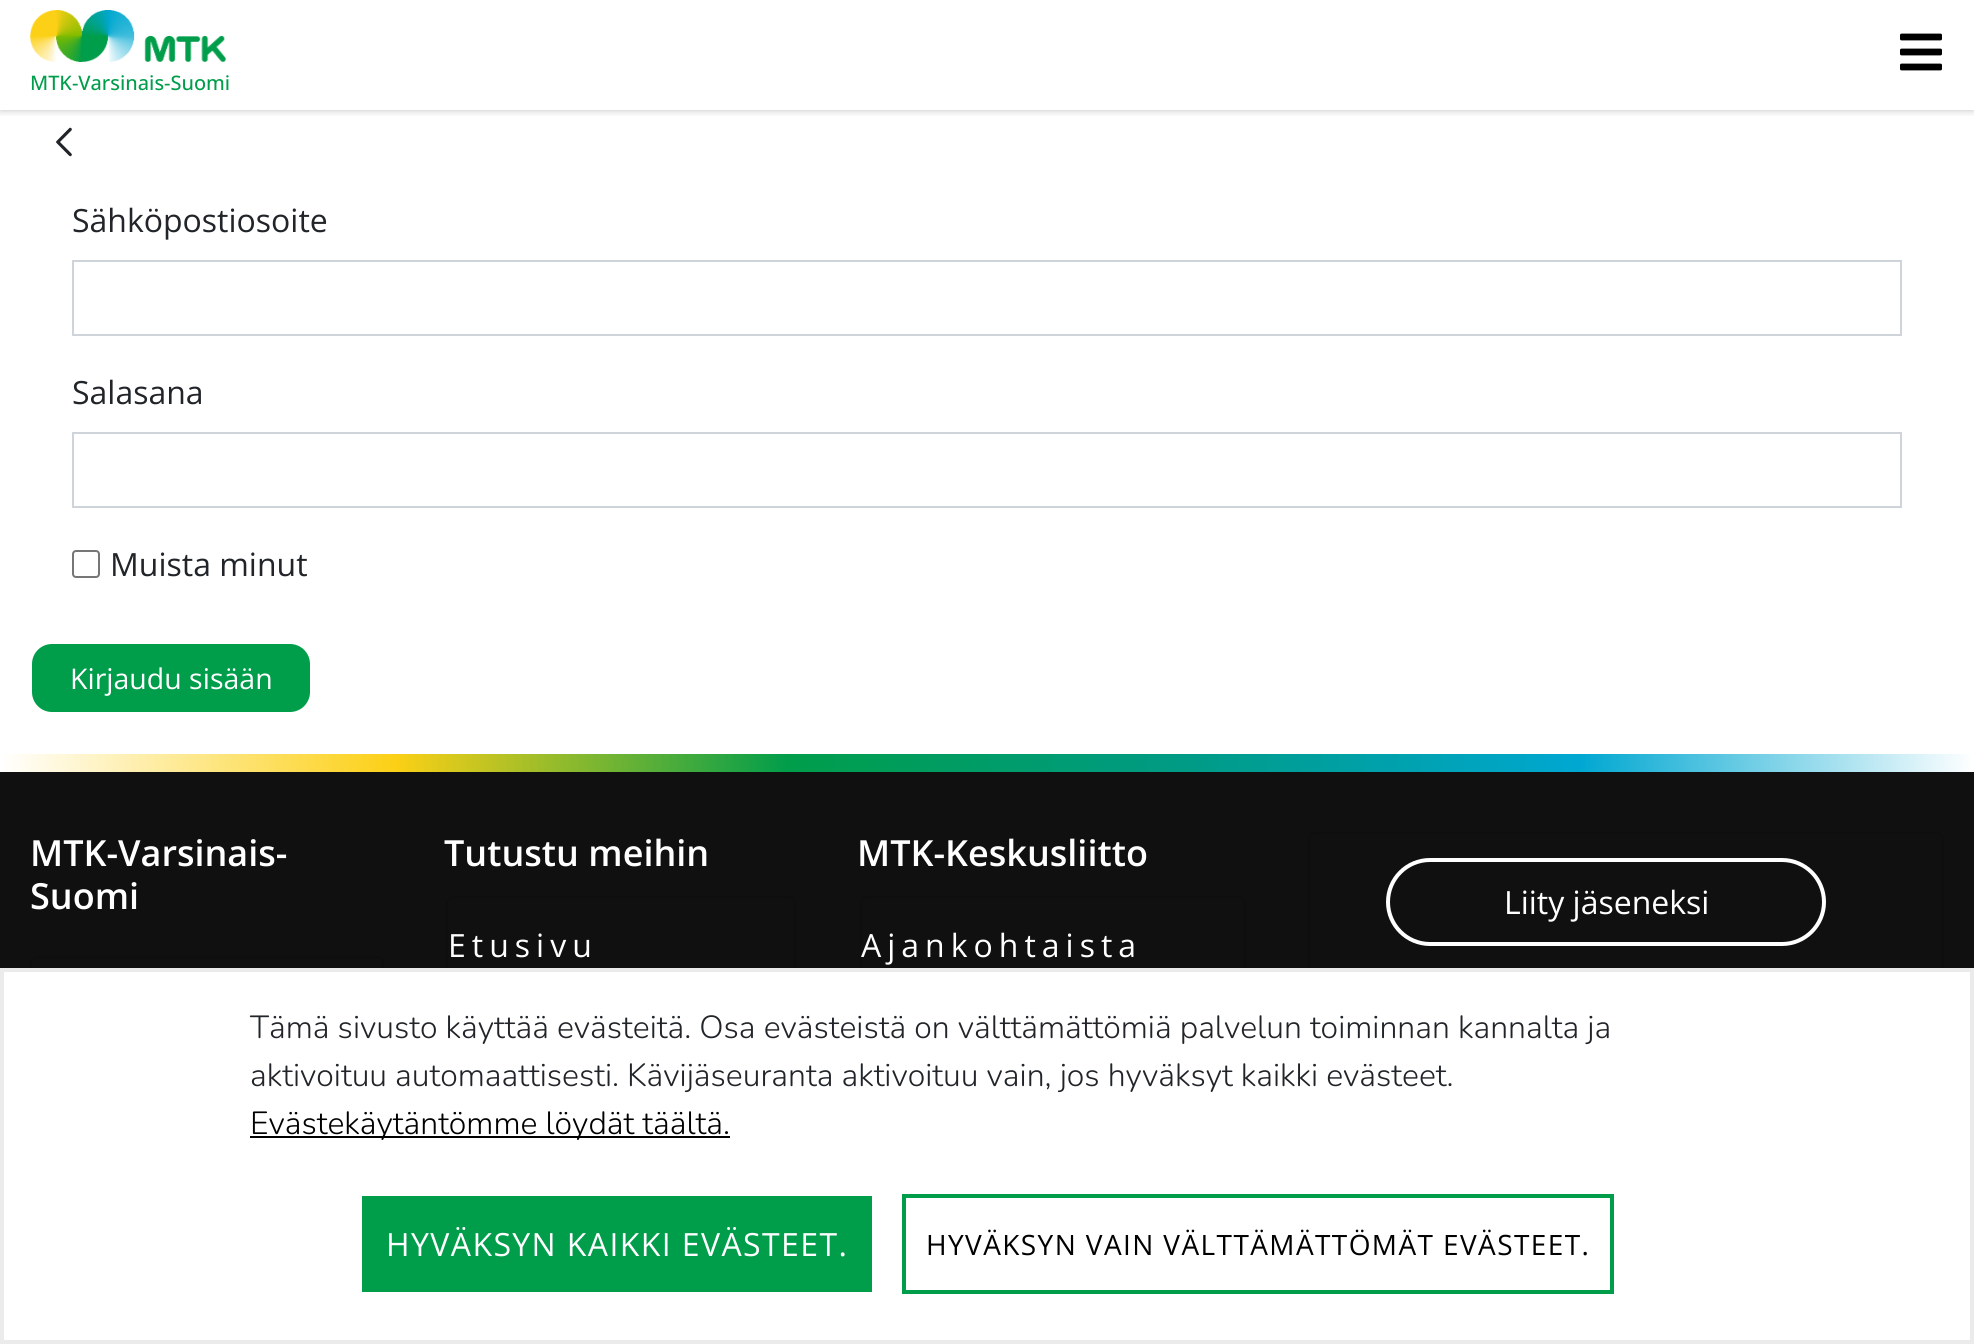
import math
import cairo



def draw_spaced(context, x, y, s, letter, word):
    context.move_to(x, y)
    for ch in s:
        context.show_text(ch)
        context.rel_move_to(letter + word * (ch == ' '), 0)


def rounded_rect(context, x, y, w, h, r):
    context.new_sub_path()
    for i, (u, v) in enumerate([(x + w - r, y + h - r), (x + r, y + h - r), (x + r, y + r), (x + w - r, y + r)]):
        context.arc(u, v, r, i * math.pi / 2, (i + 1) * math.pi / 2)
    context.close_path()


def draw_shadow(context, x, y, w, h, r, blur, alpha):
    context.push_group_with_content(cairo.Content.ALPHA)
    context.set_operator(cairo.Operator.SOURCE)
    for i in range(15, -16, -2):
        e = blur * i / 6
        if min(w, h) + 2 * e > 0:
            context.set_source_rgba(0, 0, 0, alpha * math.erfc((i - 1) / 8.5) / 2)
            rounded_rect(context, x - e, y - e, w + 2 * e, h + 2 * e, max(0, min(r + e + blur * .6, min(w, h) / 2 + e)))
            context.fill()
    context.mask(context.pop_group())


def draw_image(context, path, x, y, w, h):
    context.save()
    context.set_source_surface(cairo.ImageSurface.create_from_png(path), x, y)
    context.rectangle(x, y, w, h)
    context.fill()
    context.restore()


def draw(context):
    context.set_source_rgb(1, 1, 1)
    context.paint()
    context.save()
    context.rectangle(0, 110, 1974, 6)
    context.clip()
    context.set_source_rgb(0, 0, 0)
    draw_shadow(context, 0, 0, 1974, 110, 0, 4, 0.25)
    context.restore()
    draw_image(context, "images/1.png", 1900, 33, 42, 38)
    draw_image(context, "images/2.png", 30, 10, 196, 52)
    draw_image(context, "images/3.png", 56, 127, 16, 30)
    context.rectangle(73, 261, 1828, 74)
    context.set_source_rgb(206 / 255, 212 / 255, 218 / 255)
    context.stroke()
    context.rectangle(73, 433, 1828, 74)
    context.stroke()
    rounded_rect(context, 73, 551, 26, 26, 3)
    context.set_source_rgb(118 / 255, 118 / 255, 118 / 255)
    context.stroke()
    context.set_source_rgb(0, 157 / 255, 75 / 255)
    rounded_rect(context, 33, 645, 276, 66, 19)
    context.fill_preserve()
    context.stroke()
    context.set_source_rgb(16 / 255, 16 / 255, 16 / 255)
    context.rectangle(0, 772, 1974, 196)
    context.fill()
    gradient = cairo.LinearGradient(0, 763, 1974, 763)
    gradient.add_color_stop_rgba(0, 1, 1, 1, 1)
    gradient.add_color_stop_rgba(0.2, 252 / 255, 208 / 255, 22 / 255, 1)
    gradient.add_color_stop_rgba(0.4, 0, 157 / 255, 75 / 255, 1)
    gradient.add_color_stop_rgba(0.6, 0, 155 / 255, 133 / 255, 1)
    gradient.add_color_stop_rgba(0.8, 0, 167 / 255, 209 / 255, 1)
    gradient.add_color_stop_rgba(1, 1, 1, 1, 1)
    context.set_source(gradient)
    context.rectangle(4, 754, 1966, 18)
    context.fill()
    context.new_path()
    context.move_to(38, 957)
    context.line_to(376, 957)
    context.curve_to(380, 957, 383, 960, 383, 964)
    context.line_to(383, 1033)
    context.line_to(31, 1033)
    context.line_to(31, 964)
    context.curve_to(31, 960, 34, 957, 38, 957)
    context.close_path()
    context.set_source_rgb(14 / 255, 14 / 255, 14 / 255)
    context.stroke()
    context.new_path()
    context.move_to(454, 897)
    context.line_to(788, 897)
    context.curve_to(792, 897, 795, 900, 795, 904)
    context.line_to(795, 995)
    context.line_to(447, 995)
    context.line_to(447, 904)
    context.curve_to(447, 900, 450, 897, 454, 897)
    context.close_path()
    context.stroke()
    context.new_path()
    context.move_to(868, 897)
    context.line_to(1238, 897)
    context.curve_to(1242, 897, 1245, 900, 1245, 904)
    context.line_to(1245, 995)
    context.line_to(861, 995)
    context.line_to(861, 904)
    context.curve_to(861, 900, 864, 897, 868, 897)
    context.close_path()
    context.stroke()
    context.new_path()
    context.move_to(1316, 833)
    context.line_to(1936, 833)
    context.curve_to(1940, 833, 1943, 836, 1943, 840)
    context.line_to(1943, 971)
    context.line_to(1309, 971)
    context.line_to(1309, 840)
    context.curve_to(1309, 836, 1312, 833, 1316, 833)
    context.close_path()
    context.stroke()
    rounded_rect(context, 1388, 860, 436, 84, 42)
    context.set_source_rgb(1, 1, 1)
    context.set_line_width(4)
    context.stroke()
    context.rectangle(30, 972, 1216, 62)
    context.fill()
    context.rectangle(2, 970, 1970, 372)
    context.set_source_rgb(235 / 255, 235 / 255, 235 / 255)
    context.stroke()
    context.set_source_rgb(0, 0, 0)
    context.rectangle(250, 1136, 480, 2)
    context.fill()
    context.set_source_rgb(0, 157 / 255, 75 / 255)
    context.rectangle(362, 1196, 510, 96)
    context.fill()
    context.rectangle(904, 1196, 708, 96)
    context.stroke()
    context.select_font_face("Open Sans Medium")
    context.set_font_size(20)
    context.move_to(30, 90)
    context.show_text("MTK-Varsinais-Suomi")
    context.select_font_face("Open Sans")
    context.set_font_size(32)
    context.set_source_rgb(33 / 255, 37 / 255, 41 / 255)
    context.move_to(72, 232)
    context.show_text("Sähköpostiosoite")
    context.move_to(72, 404)
    context.show_text("Salasana")
    context.move_to(110, 576)
    context.show_text("Muista minut")
    context.set_font_size(28.5)
    context.set_source_rgb(1, 1, 1)
    context.move_to(70, 689)
    context.show_text("Kirjaudu sisään")
    context.select_font_face("Open Sans SemiBold")
    context.set_font_size(36)
    context.move_to(30, 866)
    context.show_text("MTK-Varsinais-")
    context.move_to(30, 909)
    context.show_text("Suomi")
    context.move_to(444, 866)
    context.show_text("Tutustu meihin")
    context.select_font_face("Open Sans")
    context.set_font_size(32)
    draw_spaced(context, 448, 957, "Etusivu", 6, 0)
    context.select_font_face("Open Sans SemiBold")
    context.set_font_size(36)
    context.move_to(857, 866)
    context.show_text("MTK-Keskusliitto")
    context.select_font_face("Open Sans")
    context.set_font_size(32)
    draw_spaced(context, 861, 957, "Ajankohtaista", 6, 0)
    context.move_to(1504, 914)
    context.show_text("Liity jäseneksi")
    context.select_font_face("Nunito Light")
    context.set_source_rgb(33 / 255, 37 / 255, 41 / 255)
    context.move_to(250, 1038)
    context.show_text("Tämä sivusto käyttää evästeitä. Osa evästeistä on välttämättömiä palvelun toiminnan kannalta ja")
    context.move_to(250, 1086)
    context.show_text("aktivoituu automaattisesti. Kävijäseuranta aktivoituu vain, jos hyväksyt kaikki evästeet.")
    context.set_source_rgb(0, 0, 0)
    context.move_to(250, 1134)
    context.show_text("Evästekäytäntömme löydät täältä.")
    context.select_font_face("Open Sans")
    context.set_source_rgb(1, 1, 1)
    draw_spaced(context, 386, 1256, "HYVÄKSYN KAIKKI EVÄSTEET.", 1.4, 0)
    context.set_font_size(28)
    context.set_source_rgb(0, 0, 0)
    draw_spaced(context, 926, 1255, "HYVÄKSYN VAIN VÄLTTÄMÄTTÖMÄT EVÄSTEET.", 1.4, 0)


surface = cairo.ImageSurface(cairo.Format.RGB24, 1974, 1344)
context = cairo.Context(surface)
options = cairo.FontOptions()
options.set_hint_metrics(cairo.HintMetrics.OFF)
options.set_hint_style(cairo.HintStyle.NONE)
context.set_font_options(options)
context.set_miter_limit(4)
draw(context)
surface.write_to_png("out.png")
